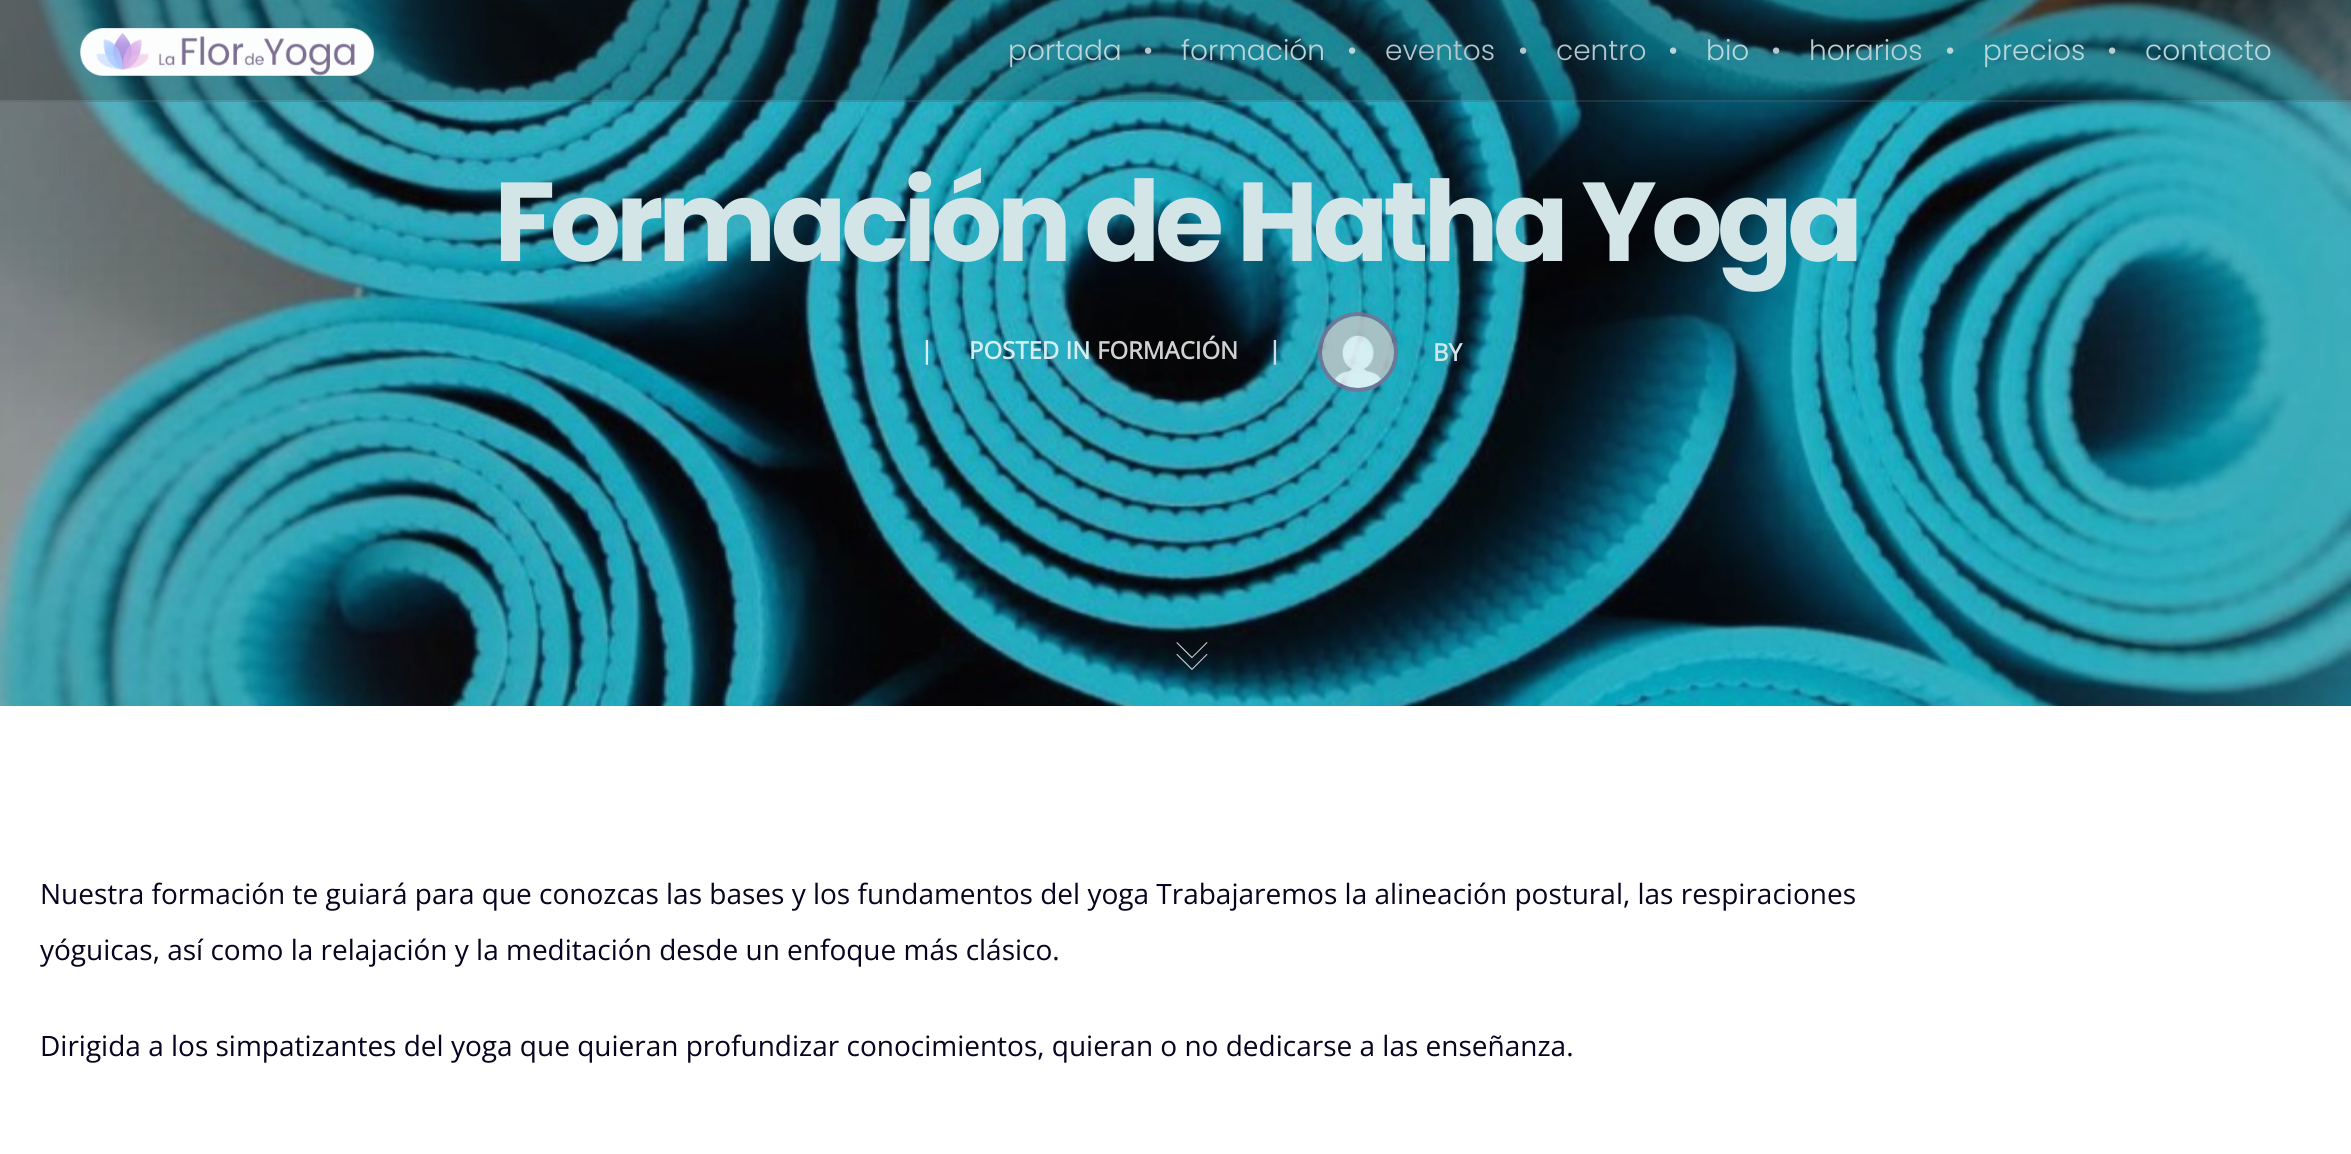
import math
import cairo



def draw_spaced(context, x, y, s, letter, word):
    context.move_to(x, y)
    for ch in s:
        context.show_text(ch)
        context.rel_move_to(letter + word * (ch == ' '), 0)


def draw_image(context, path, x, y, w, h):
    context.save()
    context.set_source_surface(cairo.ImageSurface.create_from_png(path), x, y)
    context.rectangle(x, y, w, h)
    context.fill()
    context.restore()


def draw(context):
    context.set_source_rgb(1, 1, 1)
    context.paint()
    draw_image(context, "images/2.png", 0, 0, 2351, 706)
    context.set_source_rgba(19 / 255, 20 / 255, 22 / 255, 0.25)
    context.rectangle(0, 0, 2351, 102)
    context.fill()
    context.set_source_rgba(1, 1, 1, 0.1)
    context.rectangle(0, 100, 2351, 2)
    context.fill()
    draw_image(context, "images/1.png", 80, 28, 294, 48)
    context.arc(1358, 352, 38, 0, 2 * math.pi)
    context.set_source_rgba(124 / 255, 111 / 255, 145 / 255, 0.82)
    context.set_line_width(4)
    context.stroke()
    draw_image(context, "images/3.png", 1322, 316, 72, 72)
    draw_image(context, "images/4.png", 1176, 642, 32, 28)
    context.select_font_face("Poppins Light")
    context.set_font_size(28)
    context.set_source_rgb(187 / 255, 214 / 255, 219 / 255)
    context.move_to(1008, 60)
    context.show_text("portada")
    context.set_source_rgb(183 / 255, 199 / 255, 205 / 255)
    context.move_to(1143, 60)
    context.show_text("•")
    context.set_source_rgb(187 / 255, 214 / 255, 219 / 255)
    context.move_to(1181, 60)
    context.show_text("formación")
    context.move_to(1347, 60)
    context.show_text("•")
    context.set_source_rgb(183 / 255, 199 / 255, 205 / 255)
    context.move_to(1385, 60)
    context.show_text("eventos")
    context.move_to(1518, 60)
    context.show_text("•")
    context.move_to(1556, 60)
    context.show_text("centro")
    context.set_source_rgb(187 / 255, 214 / 255, 219 / 255)
    context.move_to(1668, 60)
    context.show_text("•")
    context.move_to(1706, 60)
    context.show_text("bio")
    context.set_source_rgb(183 / 255, 199 / 255, 205 / 255)
    context.move_to(1771, 60)
    context.show_text("•")
    context.set_source_rgb(186 / 255, 207 / 255, 211 / 255)
    context.move_to(1809, 60)
    context.show_text("horarios")
    context.set_source_rgb(187 / 255, 214 / 255, 219 / 255)
    context.move_to(1945, 60)
    context.show_text("•")
    context.move_to(1983, 60)
    context.show_text("precios")
    context.set_source_rgb(186 / 255, 207 / 255, 211 / 255)
    context.move_to(2107, 60)
    context.show_text("•")
    context.set_source_rgb(187 / 255, 214 / 255, 219 / 255)
    context.move_to(2145, 60)
    context.show_text("contacto")
    context.select_font_face("Poppins", cairo.FontSlant.NORMAL, cairo.FontWeight.BOLD)
    context.set_font_size(112)
    context.set_source_rgb(212 / 255, 229 / 255, 232 / 255)
    draw_spaced(context, 494, 261, "Formación de Hatha Yoga", -5.6, 0)
    context.select_font_face("Open Sans", cairo.FontSlant.NORMAL, cairo.FontWeight.BOLD)
    context.set_font_size(24)
    context.set_source_rgb(214 / 255, 239 / 255, 244 / 255)
    context.move_to(920, 359)
    context.show_text("|")
    context.move_to(969, 359)
    context.show_text("POSTED IN")
    context.set_source_rgb(209 / 255, 209 / 255, 209 / 255)
    context.move_to(1097, 359)
    context.show_text("FORMACIÓN")
    context.set_source_rgb(211 / 255, 223 / 255, 227 / 255)
    context.move_to(1268, 359)
    context.show_text("|")
    context.set_source_rgb(212 / 255, 229 / 255, 232 / 255)
    context.move_to(1433, 361)
    context.show_text("BY")
    context.select_font_face("Open Sans")
    context.set_font_size(28)
    context.set_source_rgb(9 / 255, 3 / 255, 31 / 255)
    context.move_to(40, 904)
    context.show_text("Nuestra formación te guiará para que conozcas las bases y los fundamentos del yoga Trabajaremos la alineación postural, las respiraciones")
    context.move_to(40, 960)
    context.show_text("yóguicas, así como la relajación y la meditación desde un enfoque más clásico.")
    context.move_to(40, 1056)
    context.show_text("Dirigida a los simpatizantes del yoga que quieran profundizar conocimientos, quieran o no dedicarse a las enseñanza.")


surface = cairo.ImageSurface(cairo.Format.RGB24, 2351, 1154)
context = cairo.Context(surface)
options = cairo.FontOptions()
options.set_hint_metrics(cairo.HintMetrics.OFF)
options.set_hint_style(cairo.HintStyle.NONE)
context.set_font_options(options)
context.set_miter_limit(4)
draw(context)
surface.write_to_png("out.png")
